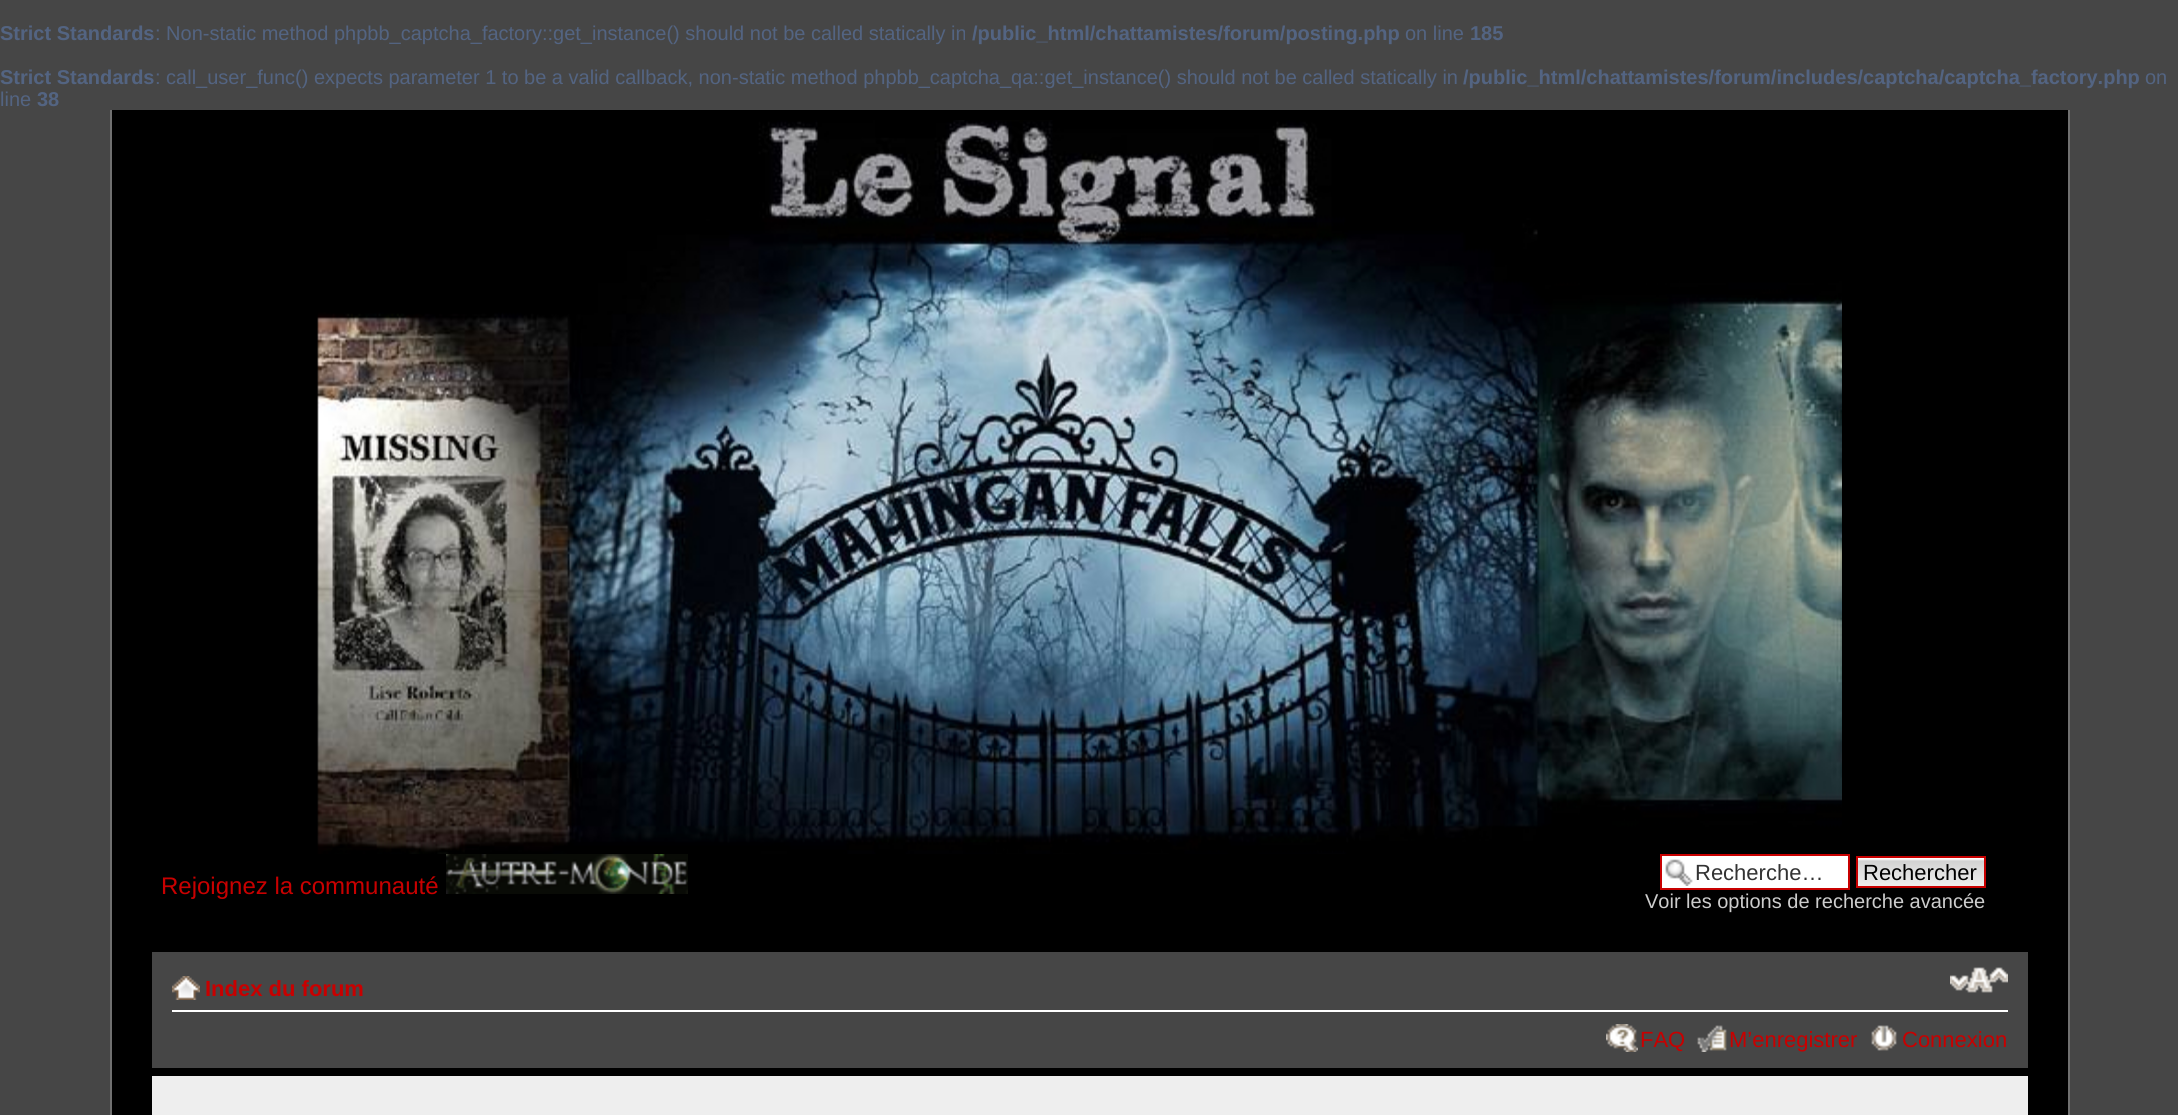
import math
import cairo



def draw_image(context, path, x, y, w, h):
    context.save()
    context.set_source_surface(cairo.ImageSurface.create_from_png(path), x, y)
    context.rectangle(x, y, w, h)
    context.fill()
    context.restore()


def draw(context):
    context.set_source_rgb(70 / 255, 70 / 255, 70 / 255)
    context.paint()
    context.set_source_rgb(0, 0, 0)
    context.rectangle(112, 110, 1956, 1005)
    context.fill()
    context.set_source_rgb(112 / 255, 112 / 255, 112 / 255)
    context.rectangle(2068, 110, 2, 1005)
    context.fill()
    context.rectangle(110, 110, 2, 1005)
    context.fill()
    draw_image(context, "images/1.png", 317, 120, 1525, 734)
    draw_image(context, "images/2.png", 446, 854, 242, 40)
    context.set_source_rgb(1, 1, 1)
    context.rectangle(1662, 856, 186, 32)
    context.fill()
    draw_image(context, "images/3.png", 1665, 859, 28, 27)
    context.rectangle(1661, 855, 188, 34)
    context.set_source_rgb(200 / 255, 0, 0)
    context.stroke()
    draw_image(context, "images/4.png", 1858, 858, 126, 28)
    context.rectangle(1857, 857, 128, 30)
    context.stroke()
    context.set_source_rgb(70 / 255, 70 / 255, 70 / 255)
    context.rectangle(152, 952, 1876, 116)
    context.fill()
    context.set_source_rgb(1, 1, 1)
    context.rectangle(172, 1010, 1836, 2)
    context.fill()
    draw_image(context, "images/5.png", 172, 976, 28, 24)
    draw_image(context, "images/6.png", 1950, 967, 58, 26)
    draw_image(context, "images/7.png", 1606, 1024, 32, 28)
    draw_image(context, "images/8.png", 1697, 1025, 30, 27)
    draw_image(context, "images/9.png", 1871, 1025, 26, 26)
    context.set_source_rgb(238 / 255, 238 / 255, 238 / 255)
    context.rectangle(152, 1076, 1876, 39)
    context.fill()
    context.select_font_face("Liberation Sans", cairo.FontSlant.NORMAL, cairo.FontWeight.BOLD)
    context.set_font_size(20)
    context.set_source_rgb(83 / 255, 100 / 255, 130 / 255)
    context.move_to(0, 40)
    context.show_text("Strict Standards")
    context.select_font_face("Liberation Sans")
    context.move_to(155, 40)
    context.show_text(": Non-static method phpbb_captcha_factory::get_instance() should not be called statically in")
    context.select_font_face("Liberation Sans", cairo.FontSlant.NORMAL, cairo.FontWeight.BOLD)
    context.move_to(972, 40)
    context.show_text("/public_html/chattamistes/forum/posting.php")
    context.select_font_face("Liberation Sans")
    context.move_to(1405, 40)
    context.show_text("on line")
    context.select_font_face("Liberation Sans", cairo.FontSlant.NORMAL, cairo.FontWeight.BOLD)
    context.move_to(1470, 40)
    context.show_text("185")
    context.move_to(0, 84)
    context.show_text("Strict Standards")
    context.select_font_face("Liberation Sans")
    context.move_to(155, 84)
    context.show_text(": call_user_func() expects parameter 1 to be a valid callback, non-static method phpbb_captcha_qa::get_instance() should not be called statically in")
    context.select_font_face("Liberation Sans", cairo.FontSlant.NORMAL, cairo.FontWeight.BOLD)
    context.move_to(1463, 84)
    context.show_text("/public_html/chattamistes/forum/includes/captcha/captcha_factory.php")
    context.select_font_face("Liberation Sans")
    context.move_to(2145, 84)
    context.show_text("on")
    context.move_to(0, 106)
    context.show_text("line")
    context.select_font_face("Liberation Sans", cairo.FontSlant.NORMAL, cairo.FontWeight.BOLD)
    context.move_to(37, 106)
    context.show_text("38")
    context.select_font_face("Liberation Sans")
    context.set_font_size(24)
    context.set_source_rgb(200 / 255, 0, 0)
    context.move_to(161, 894)
    context.show_text("Rejoignez la communauté")
    context.set_font_size(22)
    context.set_source_rgb(51 / 255, 51 / 255, 51 / 255)
    context.move_to(1695, 880)
    context.show_text("Recherche…")
    context.set_source_rgb(0, 0, 0)
    context.move_to(1863, 880)
    context.show_text("Rechercher")
    context.set_font_size(20)
    context.set_source_rgb(205 / 255, 205 / 255, 205 / 255)
    context.move_to(1645, 908)
    context.show_text("Voir les options de recherche avancée")
    context.select_font_face("Liberation Sans", cairo.FontSlant.NORMAL, cairo.FontWeight.BOLD)
    context.set_font_size(22)
    context.set_source_rgb(200 / 255, 0, 0)
    context.move_to(205, 996)
    context.show_text("Index du forum")
    context.select_font_face("Liberation Sans")
    context.move_to(1640, 1047)
    context.show_text("FAQ")
    context.move_to(1729, 1047)
    context.show_text("M’enregistrer")
    context.move_to(1902, 1047)
    context.show_text("Connexion")


surface = cairo.ImageSurface(cairo.Format.RGB24, 2178, 1115)
context = cairo.Context(surface)
options = cairo.FontOptions()
options.set_hint_metrics(cairo.HintMetrics.OFF)
options.set_hint_style(cairo.HintStyle.NONE)
context.set_font_options(options)
context.set_miter_limit(4)
draw(context)
surface.write_to_png("out.png")
